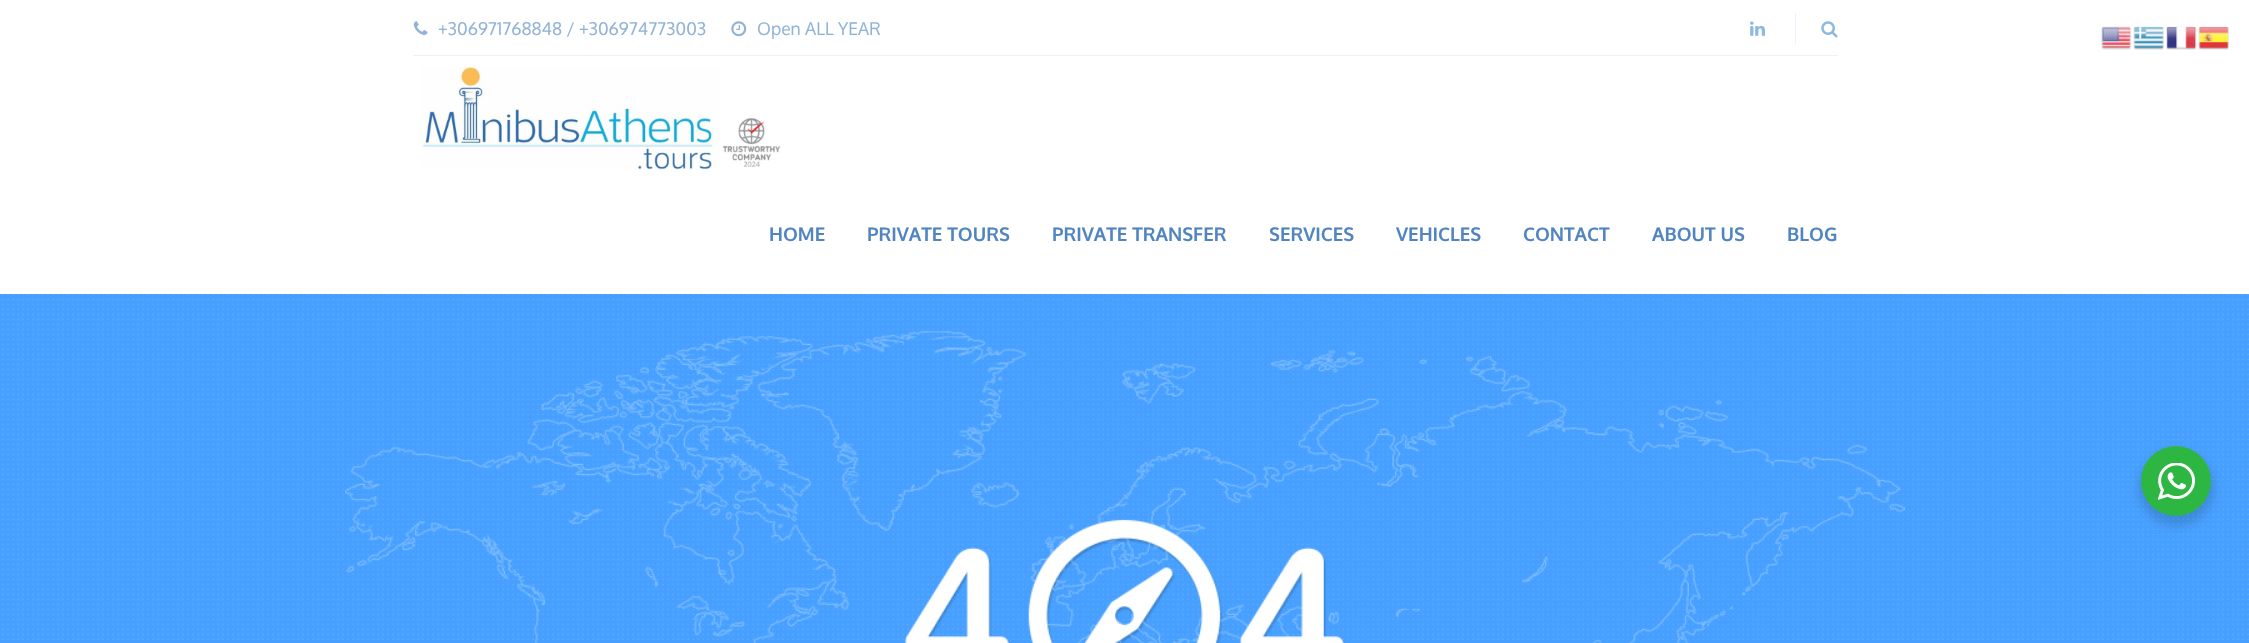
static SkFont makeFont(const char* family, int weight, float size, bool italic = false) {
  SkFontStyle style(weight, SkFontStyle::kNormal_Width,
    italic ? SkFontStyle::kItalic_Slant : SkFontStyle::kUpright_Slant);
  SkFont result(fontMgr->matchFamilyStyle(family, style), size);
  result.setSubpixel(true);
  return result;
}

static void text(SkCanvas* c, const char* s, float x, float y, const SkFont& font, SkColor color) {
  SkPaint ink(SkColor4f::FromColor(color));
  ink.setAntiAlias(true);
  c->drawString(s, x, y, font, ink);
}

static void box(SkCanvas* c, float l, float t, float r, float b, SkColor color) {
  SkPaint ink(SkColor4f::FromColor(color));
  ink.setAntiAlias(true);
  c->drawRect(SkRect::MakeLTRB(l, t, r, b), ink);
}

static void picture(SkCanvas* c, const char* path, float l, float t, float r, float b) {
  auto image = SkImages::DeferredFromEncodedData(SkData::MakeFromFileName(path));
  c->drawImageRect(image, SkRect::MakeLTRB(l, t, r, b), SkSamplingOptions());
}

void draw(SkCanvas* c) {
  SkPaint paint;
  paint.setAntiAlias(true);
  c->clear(0xffffffff);
  picture(c, "img_01.png", 413, 21, 428, 35);
  SkFont face1 = makeFont("Oxygen", 400, 17.5f);
  text(c, "+306971768848 / +306974773003", 438, 35, face1, 0xff92b3d8);
  picture(c, "img_02.png", 731, 21, 747, 37);
  text(c, "Open ALL YEAR", 757, 35, face1, 0xff92b3d8);
  picture(c, "img_03.png", 1750, 21, 1765, 36);
  box(c, 1795, 13, 1796, 44, 0xffe9f1f9);
  picture(c, "img_04.png", 1821, 21, 1838, 38);
  box(c, 413, 55, 1838, 56, 0xffe9f1f9);
  picture(c, "img_05.png", 421, 66, 781, 170);
  SkFont face2 = makeFont("Oxygen", 700, 18.75f);
  text(c, "HOME", 769, 241, face2, 0xff5185c1);
  text(c, "PRIVATE TOURS", 867, 241, face2, 0xff5185c1);
  text(c, "PRIVATE TRANSFER", 1052, 241, face2, 0xff5185c1);
  text(c, "SERVICES", 1269, 241, face2, 0xff5185c1);
  text(c, "VEHICLES", 1396, 241, face2, 0xff5185c1);
  text(c, "CONTACT", 1523, 241, face2, 0xff5185c1);
  text(c, "ABOUT US", 1652, 241, face2, 0xff5185c1);
  text(c, "BLOG", 1787, 241, face2, 0xff5185c1);
  box(c, 0, 294, 2249, 643, 0xff47a0ff);
  picture(c, "img_06.png", 2, 294, 2249, 640);
  picture(c, "img_08.png", 904, 519, 1345, 643);
  picture(c, "img_07.png", 345, 331, 1905, 643);
  picture(c, "img_09.png", 2101, 26, 2132, 50);
  picture(c, "img_10.png", 2133, 26, 2164, 50);
  picture(c, "img_11.png", 2166, 26, 2197, 50);
  picture(c, "img_12.png", 2198, 26, 2229, 50);
  paint.setColor(0x24000000);
  paint.setMaskFilter(SkMaskFilter::MakeBlur(kNormal_SkBlurStyle, 5));
  c->drawRoundRect(SkRect::MakeLTRB(2139, 451, 2214, 526), 37.5f, 37.5f, paint);
  paint.setMaskFilter(nullptr);
  paint.setColor(0xff2db742);
  c->drawCircle(2176, 481, 35, paint);
  picture(c, "img_13.png", 2158, 463, 2195, 500);
}
